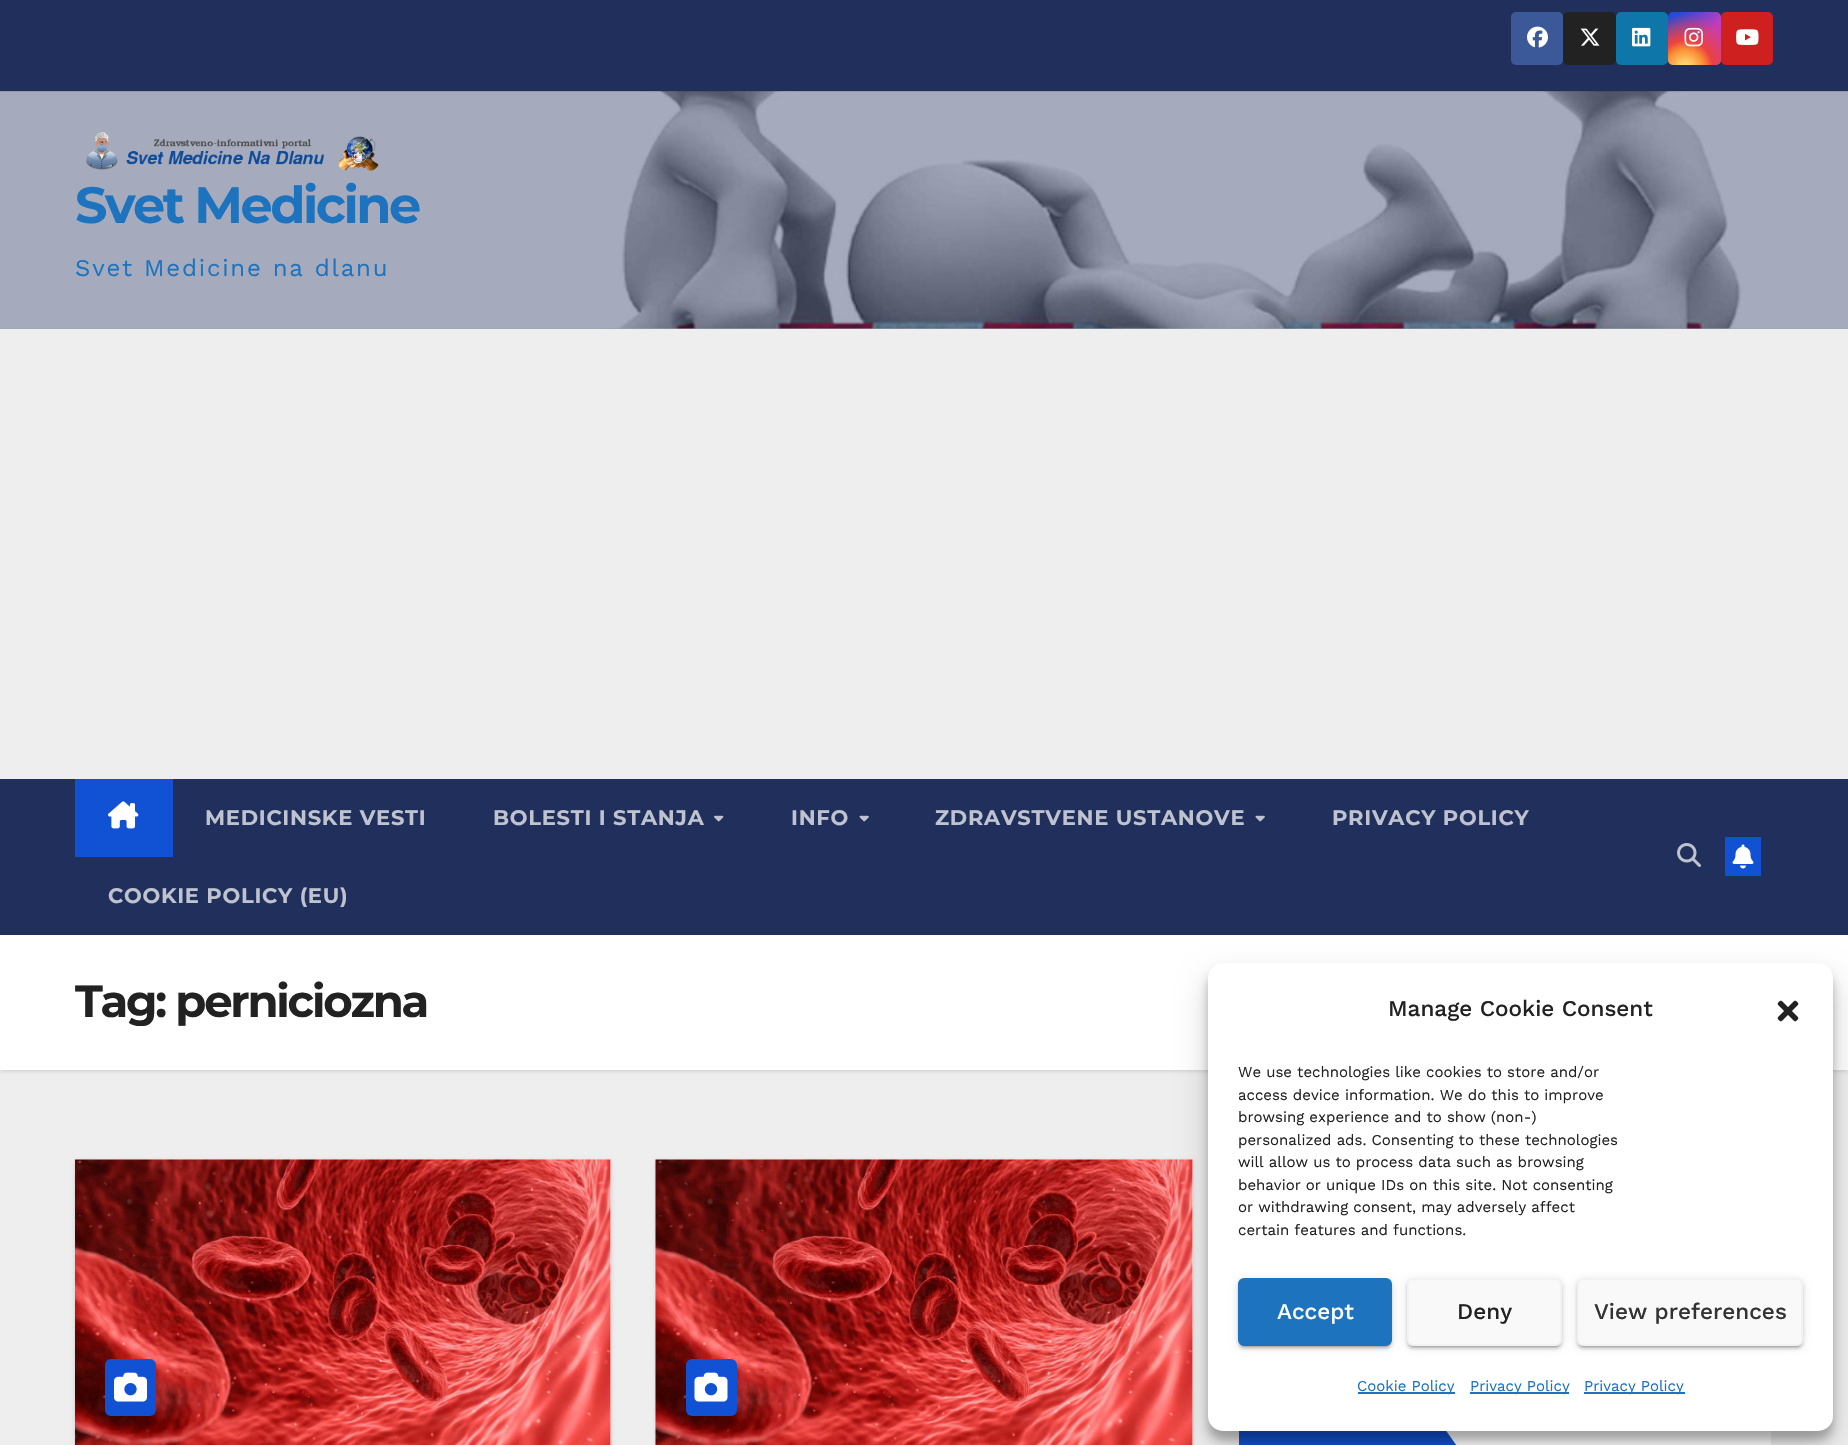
static SkFont makeFont(const char* family, int weight, float size, bool italic = false) {
  SkFontStyle style(weight, SkFontStyle::kNormal_Width,
    italic ? SkFontStyle::kItalic_Slant : SkFontStyle::kUpright_Slant);
  SkFont result(fontMgr->matchFamilyStyle(family, style), size);
  result.setSubpixel(true);
  return result;
}

static void text(SkCanvas* c, const char* s, float x, float y, const SkFont& font, SkColor color) {
  SkPaint ink(SkColor4f::FromColor(color));
  ink.setAntiAlias(true);
  c->drawString(s, x, y, font, ink);
}

static void spacedText(SkCanvas* c, const char* s, float x, float y, const SkFont& font, const SkPaint& ink, float letter, float word) {
  std::vector<SkGlyphID> glyphs(font.countText(s, strlen(s), SkTextEncoding::kUTF8));
  std::vector<float> xs(glyphs.size());
  font.textToGlyphs(s, strlen(s), SkTextEncoding::kUTF8, glyphs);
  font.getXPos(glyphs, xs, x);
  float extra = 0;
  for (size_t i = 0; i < glyphs.size(); i++) {
    xs[i] += extra;
    extra += letter + word * (glyphs[i] == font.unicharToGlyph(' '));
  }
  c->drawTextBlob(SkTextBlob::MakeFromPosHGlyphs(glyphs, xs, y, font), 0, 0, ink);
}

static void box(SkCanvas* c, float l, float t, float r, float b, SkColor color) {
  SkPaint ink(SkColor4f::FromColor(color));
  ink.setAntiAlias(true);
  c->drawRect(SkRect::MakeLTRB(l, t, r, b), ink);
}

static void roundBox(SkCanvas* c, float l, float t, float r, float b, float radius, SkColor color) {
  SkPaint ink(SkColor4f::FromColor(color));
  ink.setAntiAlias(true);
  c->drawRoundRect(SkRect::MakeLTRB(l, t, r, b), radius, radius, ink);
}

static void picture(SkCanvas* c, const char* path, float l, float t, float r, float b) {
  auto image = SkImages::DeferredFromEncodedData(SkData::MakeFromFileName(path));
  c->drawImageRect(image, SkRect::MakeLTRB(l, t, r, b), SkSamplingOptions());
}

void draw(SkCanvas* c) {
  SkPaint paint;
  paint.setAntiAlias(true);
  c->clear(0xffeeeeee);
  box(c, 0, 328, 1848, 329, 0xff9ca2b3);
  box(c, 0, 0, 1848, 92, 0xff202f5b);
  roundBox(c, 1511, 12, 1563, 65, 5, 0xff3b5998);
  picture(c, "img_01.png", 1527, 26, 1548, 48);
  roundBox(c, 1563, 12, 1616, 65, 5, 0xff222222);
  picture(c, "img_02.png", 1580, 28, 1600, 46);
  roundBox(c, 1616, 12, 1668, 65, 5, 0xff0e76a8);
  picture(c, "img_03.png", 1632, 27, 1651, 47);
  {
    const SkColor colors[] = {0xff234bd7, 0xffc33cbe};
    const float stops[] = {0.12f, 0.58f};
    const SkPoint ends[] = {{1668, 12}, {1721, 65}};
    paint.setShader(SkGradientShader::MakeLinear(ends, colors, stops, 2, SkTileMode::kClamp));
    paint.setAlpha(255);
  }
  c->drawRoundRect(SkRect::MakeLTRB(1668, 12, 1721, 65), 5, 5, paint);
  {
    const SkColor colors[] = {0xffffe17d, 0xffffcd69, 0xfffa9137, 0xffeb4141, 0x00eb4141};
    const float stops[] = {0, 0.1f, 0.28f, 0.42f, 0.82f};
    paint.setShader(SkGradientShader::MakeRadial({1685, 68}, 66, colors, stops, 5, SkTileMode::kClamp));
    paint.setAlpha(255);
  }
  c->drawRoundRect(SkRect::MakeLTRB(1668, 12, 1721, 65), 5, 5, paint);
  picture(c, "img_04.png", 1684, 27, 1703, 47);
  roundBox(c, 1721, 12, 1773, 65, 5, 0xffcd201f);
  picture(c, "img_05.png", 1736, 29, 1759, 45);
  picture(c, "img_06.png", 0, 91, 1848, 329);
  picture(c, "img_07.png", 86, 131, 379, 171);
  SkFont face1 = makeFont("Montserrat", 700, 51);
  paint.setShader(nullptr);
  paint.setColor(0xff1e73be);
  spacedText(c, "Svet Medicine", 75, 223, face1, paint, -2.5f, 0);
  SkFont face2 = makeFont("Work Sans", 400, 24);
  spacedText(c, "Svet Medicine na dlanu", 75, 276, face2, paint, 1.8f, 0);
  paint.setColor(0x26000000);
  paint.setMaskFilter(SkMaskFilter::MakeBlur(kNormal_SkBlurStyle, 2));
  c->drawRect(SkRect::MakeLTRB(0, 936, 1848, 1071), paint);
  paint.setMaskFilter(nullptr);
  box(c, 0, 779, 1848, 935, 0xff202f5b);
  box(c, 75, 779, 173, 857, 0xff1151d3);
  picture(c, "img_08.png", 108, 801, 139, 829);
  SkFont face3 = makeFont("Montserrat", 700, 21);
  paint.setColor(0xffbec3cf);
  spacedText(c, "MEDICINSKE VESTI", 205, 825, face3, paint, 0.75f, 0);
  spacedText(c, "BOLESTI I STANJA", 493, 825, face3, paint, 0.75f, 0);
  picture(c, "img_09.png", 714, 815, 724, 822);
  spacedText(c, "INFO", 791, 825, face3, paint, 0.75f, 0);
  picture(c, "img_10.png", 859, 815, 869, 822);
  spacedText(c, "ZDRAVSTVENE USTANOVE", 935, 825, face3, paint, 0.75f, 0);
  picture(c, "img_10.png", 1255, 815, 1265, 822);
  spacedText(c, "PRIVACY POLICY", 1332, 825, face3, paint, 0.75f, 0);
  spacedText(c, "COOKIE POLICY (EU)", 108, 903, face3, paint, 0.75f, 0);
  picture(c, "img_11.png", 1677, 843, 1701, 867);
  box(c, 1725, 837, 1761, 876, 0xff1151d3);
  picture(c, "img_12.png", 1732, 844, 1754, 869);
  box(c, 0, 935, 1848, 1070, 0xffffffff);
  SkFont face4 = makeFont("Montserrat", 700, 45);
  paint.setColor(0xff222222);
  spacedText(c, "Tag: perniciozna", 75, 1017, face4, paint, -2.25f, 0);
  paint.setColor(0x26000000);
  paint.setMaskFilter(SkMaskFilter::MakeBlur(kNormal_SkBlurStyle, 2));
  c->drawRect(SkRect::MakeLTRB(75, 1161, 611, 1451), paint);
  paint.setMaskFilter(nullptr);
  box(c, 610, 1160, 611, 1445, 0xffffffff);
  picture(c, "img_13.png", 75, 1159, 611, 1445);
  roundBox(c, 105, 1359, 156, 1416, 6, 0xff1151d3);
  picture(c, "img_14.png", 114, 1372, 147, 1402);
  paint.setMaskFilter(SkMaskFilter::MakeBlur(kNormal_SkBlurStyle, 2));
  c->drawRect(SkRect::MakeLTRB(656, 1161, 1193, 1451), paint);
  paint.setMaskFilter(nullptr);
  box(c, 1192, 1160, 1193, 1445, 0xffffffff);
  picture(c, "img_15.png", 655, 1159, 1193, 1445);
  roundBox(c, 686, 1359, 737, 1416, 6, 0xff1151d3);
  picture(c, "img_16.png", 694, 1372, 728, 1402);
  box(c, 1446, 1431, 1771, 1445, 0xffffffff);
  box(c, 1239, 1431, 1442, 1445, 0xff1151d3);
  paint.setColor(0xff1151d3);
  c->drawPath(SkPathBuilder().moveTo(1442, 1425).lineTo(1442, 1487).lineTo(1486, 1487).close().detach(), paint);
  paint.setColor(0x3b000000);
  paint.setMaskFilter(SkMaskFilter::MakeBlur(kNormal_SkBlurStyle, 4.5f));
  c->drawRoundRect(SkRect::MakeLTRB(1208, 972, 1833, 1440), 15, 15, paint);
  paint.setMaskFilter(nullptr);
  paint.setColor(0x30000000);
  paint.setMaskFilter(SkMaskFilter::MakeBlur(kNormal_SkBlurStyle, 15));
  c->drawRoundRect(SkRect::MakeLTRB(1208, 978, 1833, 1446), 15, 15, paint);
  paint.setMaskFilter(nullptr);
  roundBox(c, 1208, 963, 1833, 1431, 15, 0xffffffff);
  SkFont face5 = makeFont("Work Sans", 500, 22.5f);
  text(c, "Manage Cookie Consent", 1388, 1016, face5, 0xff222222);
  picture(c, "img_17.png", 1777, 1000, 1799, 1022);
  SkFont face6 = makeFont("Work Sans", 400, 15);
  text(c, "We use technologies like cookies to store and/or", 1238, 1077, face6, 0xff222222);
  text(c, "access device information. We do this to improve", 1238, 1100, face6, 0xff222222);
  text(c, "browsing experience and to show (non-)", 1238, 1122, face6, 0xff222222);
  text(c, "personalized ads. Consenting to these technologies", 1238, 1145, face6, 0xff222222);
  text(c, "will allow us to process data such as browsing", 1238, 1167, face6, 0xff222222);
  text(c, "behavior or unique IDs on this site. Not consenting", 1238, 1190, face6, 0xff222222);
  text(c, "or withdrawing consent, may adversely affect", 1238, 1212, face6, 0xff222222);
  text(c, "certain features and functions.", 1238, 1235, face6, 0xff222222);
  paint.setColor(0x1f000000);
  paint.setMaskFilter(SkMaskFilter::MakeBlur(kNormal_SkBlurStyle, 4));
  c->drawRoundRect(SkRect::MakeLTRB(1238, 1280, 1392, 1347), 6, 6, paint);
  paint.setMaskFilter(nullptr);
  paint.setColor(0x33000000);
  paint.setMaskFilter(SkMaskFilter::MakeBlur(kNormal_SkBlurStyle, 1));
  c->drawRoundRect(SkRect::MakeLTRB(1241, 1286, 1389, 1347), 3, 3, paint);
  paint.setMaskFilter(nullptr);
  paint.setColor(0x24000000);
  paint.setMaskFilter(SkMaskFilter::MakeBlur(kNormal_SkBlurStyle, 1.5f));
  c->drawRoundRect(SkRect::MakeLTRB(1238, 1281, 1392, 1349), 6, 6, paint);
  paint.setMaskFilter(nullptr);
  paint.setColor(0xff1e73be);
  c->drawRoundRect(SkRect::MakeLTRB(1239, 1279, 1391, 1345), 5, 5, paint);
  paint.setStyle(SkPaint::kStroke_Style);
  paint.setStrokeWidth(2);
  c->drawRoundRect(SkRect::MakeLTRB(1239, 1279, 1391, 1345), 5, 5, paint);
  text(c, "Accept", 1277, 1319, face5, 0xffffffff);
  paint.setStyle(SkPaint::kFill_Style);
  paint.setColor(0x1f000000);
  paint.setMaskFilter(SkMaskFilter::MakeBlur(kNormal_SkBlurStyle, 4));
  c->drawRoundRect(SkRect::MakeLTRB(1407, 1280, 1562, 1347), 6, 6, paint);
  paint.setMaskFilter(nullptr);
  paint.setColor(0x33000000);
  paint.setMaskFilter(SkMaskFilter::MakeBlur(kNormal_SkBlurStyle, 1));
  c->drawRoundRect(SkRect::MakeLTRB(1410, 1286, 1559, 1347), 3, 3, paint);
  paint.setMaskFilter(nullptr);
  paint.setColor(0x24000000);
  paint.setMaskFilter(SkMaskFilter::MakeBlur(kNormal_SkBlurStyle, 1.5f));
  c->drawRoundRect(SkRect::MakeLTRB(1407, 1281, 1562, 1349), 6, 6, paint);
  paint.setMaskFilter(nullptr);
  paint.setColor(0xfff9f9f9);
  c->drawRoundRect(SkRect::MakeLTRB(1408, 1279, 1561, 1345), 5, 5, paint);
  paint.setStyle(SkPaint::kStroke_Style);
  paint.setColor(0xfff2f2f2);
  c->drawRoundRect(SkRect::MakeLTRB(1408, 1279, 1561, 1345), 5, 5, paint);
  text(c, "Deny", 1457, 1319, face5, 0xff222222);
  paint.setStyle(SkPaint::kFill_Style);
  paint.setColor(0x1f000000);
  paint.setMaskFilter(SkMaskFilter::MakeBlur(kNormal_SkBlurStyle, 4));
  c->drawRoundRect(SkRect::MakeLTRB(1577, 1280, 1803, 1347), 6, 6, paint);
  paint.setMaskFilter(nullptr);
  paint.setColor(0x33000000);
  paint.setMaskFilter(SkMaskFilter::MakeBlur(kNormal_SkBlurStyle, 1));
  c->drawRoundRect(SkRect::MakeLTRB(1580, 1286, 1800, 1347), 3, 3, paint);
  paint.setMaskFilter(nullptr);
  paint.setColor(0x24000000);
  paint.setMaskFilter(SkMaskFilter::MakeBlur(kNormal_SkBlurStyle, 1.5f));
  c->drawRoundRect(SkRect::MakeLTRB(1577, 1281, 1803, 1349), 6, 6, paint);
  paint.setMaskFilter(nullptr);
  paint.setColor(0xfff9f9f9);
  c->drawRoundRect(SkRect::MakeLTRB(1578, 1279, 1802, 1345), 5, 5, paint);
  paint.setStyle(SkPaint::kStroke_Style);
  paint.setColor(0xfff2f2f2);
  c->drawRoundRect(SkRect::MakeLTRB(1578, 1279, 1802, 1345), 5, 5, paint);
  text(c, "View preferences", 1594, 1319, face5, 0xff333333);
  box(c, 1358, 1392, 1455, 1394, 0xff1e73be);
  text(c, "Cookie Policy", 1357, 1391, face6, 0xff1e73be);
  box(c, 1470, 1392, 1569, 1394, 0xff1e73be);
  text(c, "Privacy Policy", 1470, 1391, face6, 0xff1e73be);
  box(c, 1584, 1392, 1685, 1394, 0xff1e73be);
  text(c, "Privacy Policy", 1584, 1391, face6, 0xff1e73be);
}
